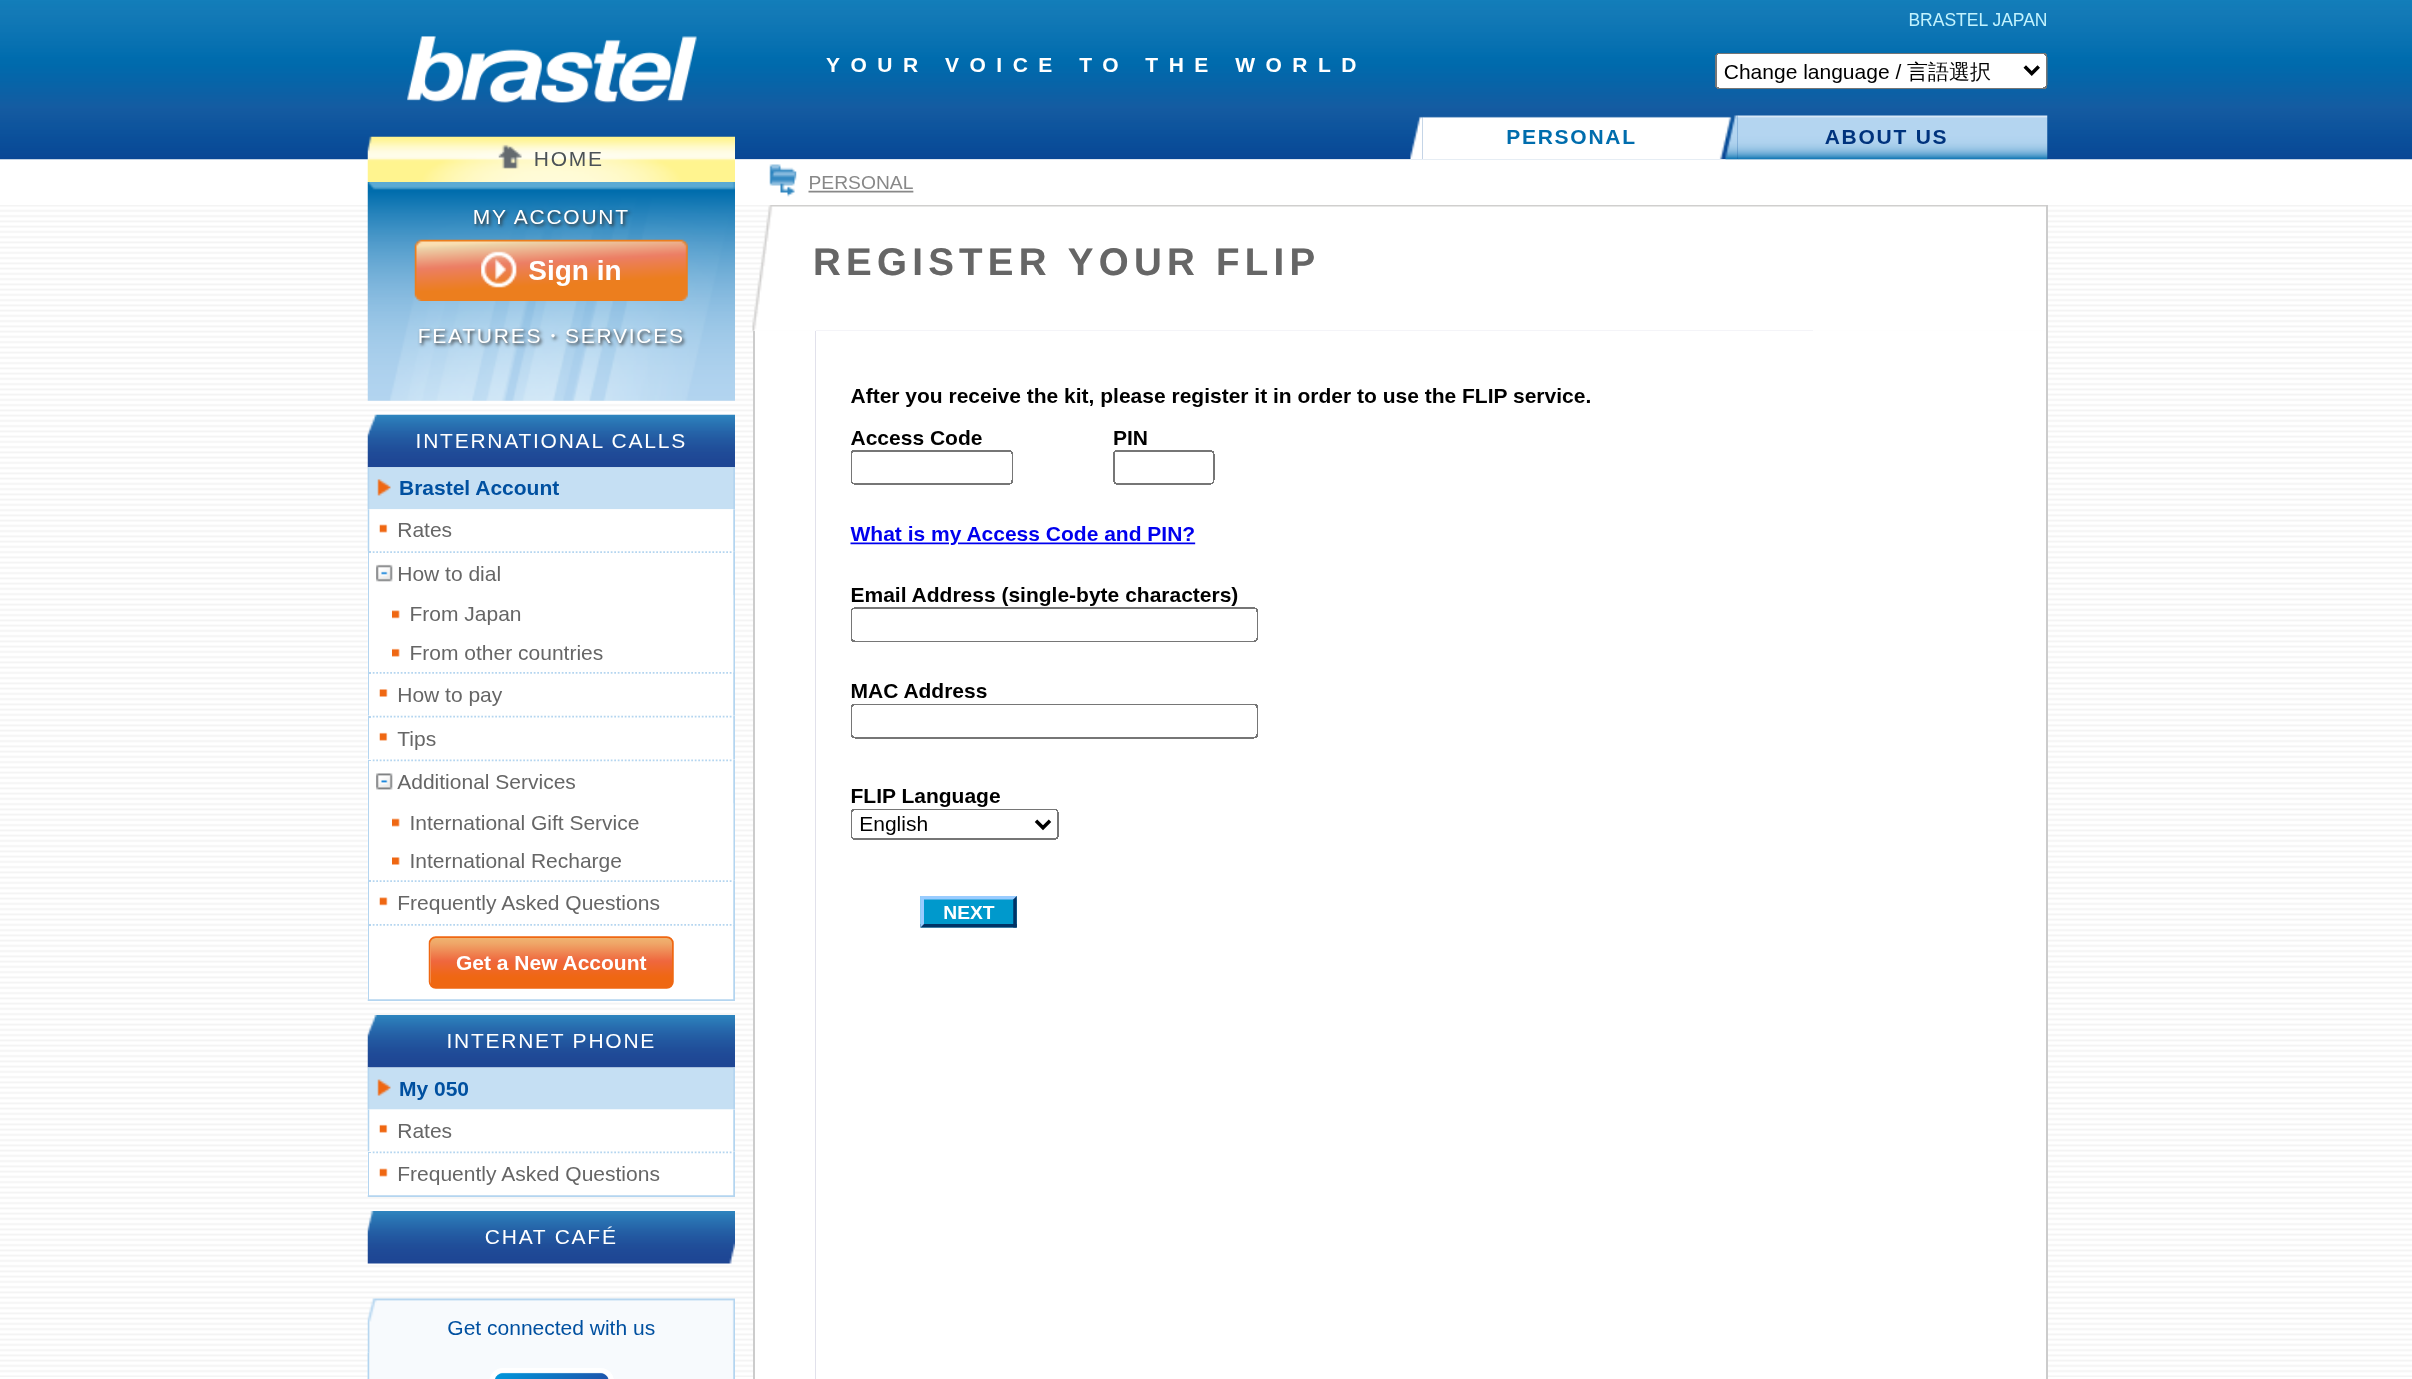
static SkFont makeFont(const char* family, int weight, float size, bool italic = false) {
  SkFontStyle style(weight, SkFontStyle::kNormal_Width,
    italic ? SkFontStyle::kItalic_Slant : SkFontStyle::kUpright_Slant);
  SkFont result(fontMgr->matchFamilyStyle(family, style), size);
  result.setSubpixel(true);
  return result;
}

static void spacedText(SkCanvas* c, const char* s, float x, float y, const SkFont& font, const SkPaint& ink, float letter, float word) {
  std::vector<SkGlyphID> glyphs(font.countText(s, strlen(s), SkTextEncoding::kUTF8));
  std::vector<float> xs(glyphs.size());
  font.textToGlyphs(s, strlen(s), SkTextEncoding::kUTF8, glyphs);
  font.getXPos(glyphs, xs, x);
  float extra = 0;
  for (size_t i = 0; i < glyphs.size(); i++) {
    xs[i] += extra;
    extra += letter + word * (glyphs[i] == font.unicharToGlyph(' '));
  }
  c->drawTextBlob(SkTextBlob::MakeFromPosHGlyphs(glyphs, xs, y, font), 0, 0, ink);
}

static void box(SkCanvas* c, float l, float t, float r, float b, SkColor color) {
  SkPaint ink(SkColor4f::FromColor(color));
  ink.setAntiAlias(true);
  c->drawRect(SkRect::MakeLTRB(l, t, r, b), ink);
}

static void picture(SkCanvas* c, const char* path, float l, float t, float r, float b) {
  auto image = SkImages::DeferredFromEncodedData(SkData::MakeFromFileName(path));
  c->drawImageRect(image, SkRect::MakeLTRB(l, t, r, b), SkSamplingOptions());
}

void draw(SkCanvas* c) {
  SkPaint paint;
  paint.setAntiAlias(true);
  c->clear(0xffffffff);
  picture(c, "img_01.png", 0, 205, 2412, 1377);
  picture(c, "img_02.png", 0, 0, 2412, 160);
  picture(c, "img_03.png", 368, 13, 2048, 197);
  picture(c, "img_04.png", 367, 136, 735, 1379);
  box(c, 755, 331, 2046, 1377, 0xffffffff);
  box(c, 2046, 205, 2048, 1379, 0xffcccccc);
  box(c, 753, 331, 755, 1379, 0xffcccccc);
  picture(c, "img_06.png", 752, 205, 2046, 331);
  picture(c, "img_05.png", 815, 330, 1813, 1379);
  SkFont face1 = makeFont("Liberation Sans", 700, 38.5f);
  paint.setColor(0xff666666);
  spacedText(c, "REGISTER YOUR FLIP", 813, 275, face1, paint, 5.25f, 0);
}
